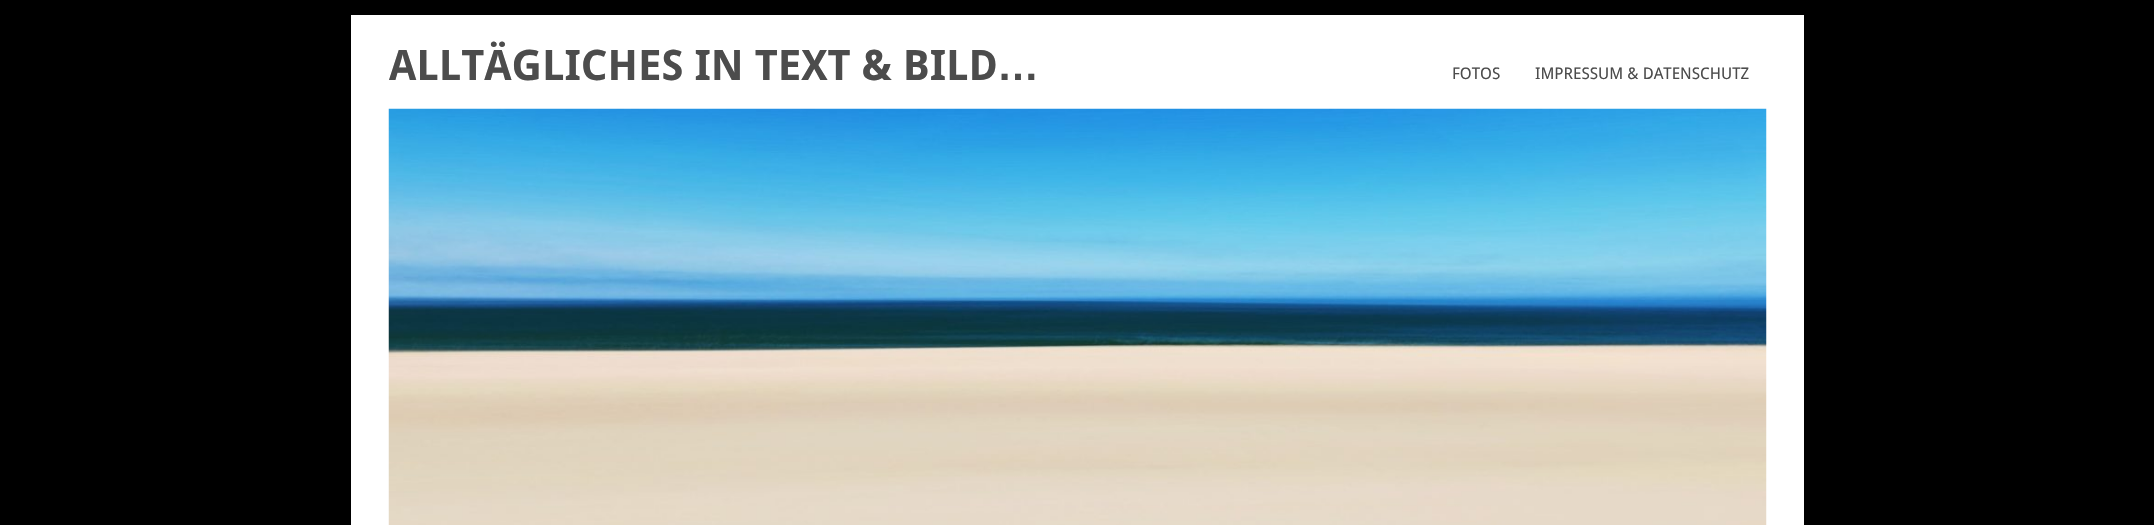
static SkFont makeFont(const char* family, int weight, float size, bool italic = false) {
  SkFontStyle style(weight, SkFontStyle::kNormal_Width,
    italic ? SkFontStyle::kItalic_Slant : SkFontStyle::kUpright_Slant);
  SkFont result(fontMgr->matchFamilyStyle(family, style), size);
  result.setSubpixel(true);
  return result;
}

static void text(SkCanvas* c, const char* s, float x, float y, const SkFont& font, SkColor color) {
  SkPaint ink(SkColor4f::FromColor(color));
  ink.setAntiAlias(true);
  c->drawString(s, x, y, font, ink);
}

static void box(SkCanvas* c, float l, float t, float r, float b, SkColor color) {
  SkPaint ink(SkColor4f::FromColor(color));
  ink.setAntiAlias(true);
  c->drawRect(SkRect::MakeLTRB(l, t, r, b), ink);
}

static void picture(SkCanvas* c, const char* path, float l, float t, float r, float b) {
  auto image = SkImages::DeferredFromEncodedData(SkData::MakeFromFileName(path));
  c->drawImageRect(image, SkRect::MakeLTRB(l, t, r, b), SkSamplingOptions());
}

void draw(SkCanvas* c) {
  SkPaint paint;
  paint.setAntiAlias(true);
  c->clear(0xff000000);
  box(c, 351, 15, 1804, 525, 0xffffffff);
  SkFont face1 = makeFont("Droid Sans", 700, 42);
  text(c, "ALLTÄGLICHES IN TEXT & BILD", 389, 80, face1, 0xff4c4c4c);
  SkFont face2 = makeFont("Liberation Sans", 700, 42);
  text(c, "…", 997, 80, face2, 0xff4c4c4c);
  SkFont face3 = makeFont("Droid Sans", 400, 16);
  text(c, "FOTOS", 1452, 79, face3, 0xff4c4c4c);
  text(c, "IMPRESSUM & DATENSCHUTZ", 1535, 79, face3, 0xff4c4c4c);
  picture(c, "img_01.png", 388, 108, 1767, 525);
}
